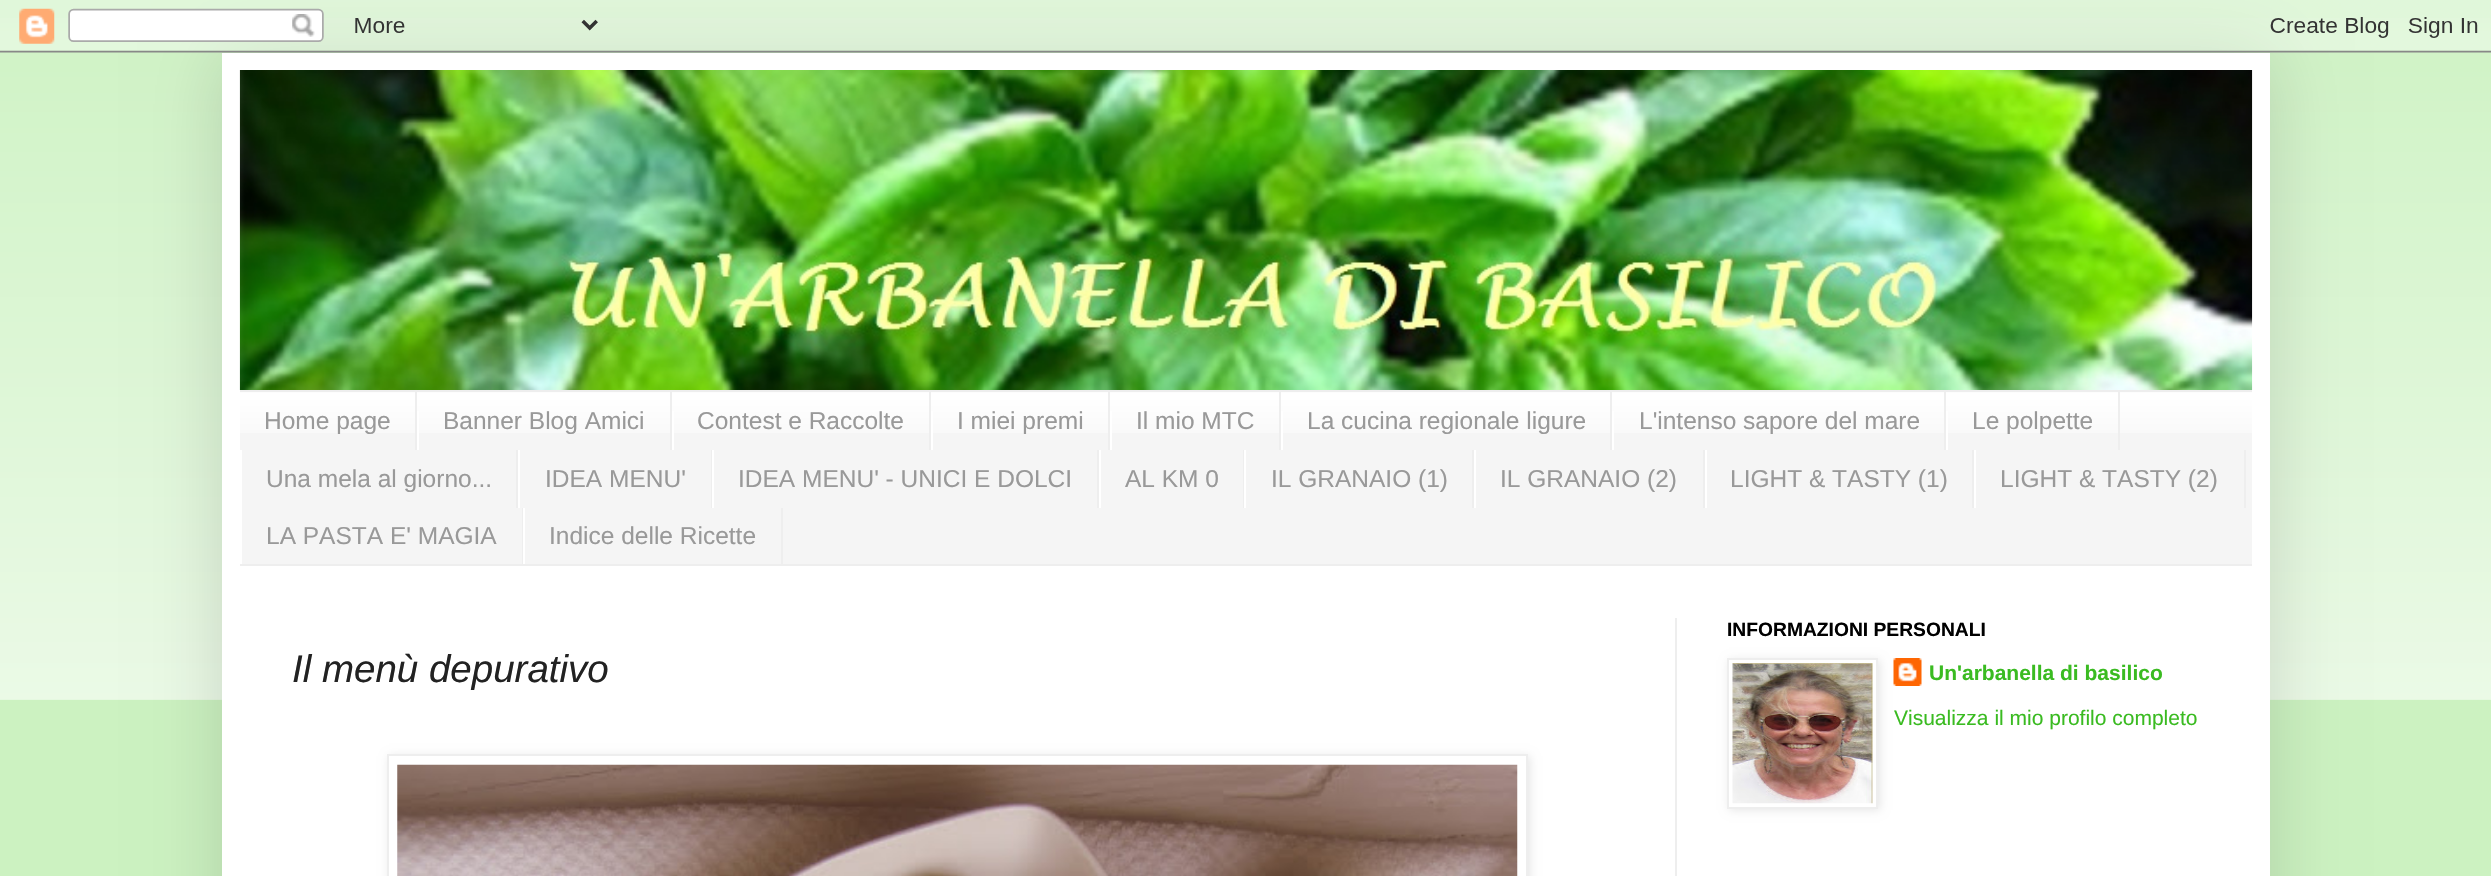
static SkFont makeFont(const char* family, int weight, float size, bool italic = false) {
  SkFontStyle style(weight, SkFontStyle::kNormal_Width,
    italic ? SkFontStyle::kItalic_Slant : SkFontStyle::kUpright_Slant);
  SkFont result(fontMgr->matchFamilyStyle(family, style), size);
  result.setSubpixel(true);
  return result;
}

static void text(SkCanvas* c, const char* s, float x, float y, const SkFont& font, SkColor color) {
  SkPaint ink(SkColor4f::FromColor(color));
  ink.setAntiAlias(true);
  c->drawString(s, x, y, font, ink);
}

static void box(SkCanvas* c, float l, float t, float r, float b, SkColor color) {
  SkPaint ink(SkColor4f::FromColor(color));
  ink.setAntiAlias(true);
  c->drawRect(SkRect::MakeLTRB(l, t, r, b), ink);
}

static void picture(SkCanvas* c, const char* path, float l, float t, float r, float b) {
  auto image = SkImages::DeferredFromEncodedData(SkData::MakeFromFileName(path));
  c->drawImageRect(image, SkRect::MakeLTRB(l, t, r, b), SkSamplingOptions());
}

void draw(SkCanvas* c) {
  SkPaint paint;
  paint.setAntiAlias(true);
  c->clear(0xffccf2c1);
  picture(c, "img_02.png", 0, 18, 2491, 700);
  paint.setColor(0x26000000);
  paint.setMaskFilter(SkMaskFilter::MakeBlur(kNormal_SkBlurStyle, 35));
  c->drawRect(SkRect::MakeLTRB(222, 53, 2270, 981), paint);
  paint.setMaskFilter(nullptr);
  picture(c, "img_01.png", 0, 0, 2491, 53);
  box(c, 222, 53, 2270, 876, 0xffffffff);
  picture(c, "img_03.png", 239, 70, 2253, 390);
  box(c, 240, 392, 2252, 564, 0xfff5f5f5);
  picture(c, "img_04.png", 240, 392, 2252, 433);
  box(c, 240, 390, 2252, 392, 0xffeeeeee);
  box(c, 240, 564, 2252, 566, 0xffeeeeee);
  box(c, 415, 392, 417, 450, 0xffeeeeee);
  SkFont face1 = makeFont("Liberation Sans", 400, 24.5f);
  text(c, "Home page", 264, 429, face1, 0xff999999);
  box(c, 670, 392, 672, 450, 0xffeeeeee);
  box(c, 417, 411, 419, 450, 0xffffffff);
  text(c, "Banner Blog Amici", 443, 429, face1, 0xff999999);
  box(c, 929, 392, 931, 450, 0xffeeeeee);
  box(c, 672, 411, 674, 450, 0xffffffff);
  text(c, "Contest e Raccolte", 697, 429, face1, 0xff999999);
  box(c, 1108, 392, 1110, 450, 0xffeeeeee);
  box(c, 931, 411, 933, 450, 0xffffffff);
  text(c, "I miei premi", 957, 429, face1, 0xff999999);
  box(c, 1279, 392, 1281, 450, 0xffeeeeee);
  box(c, 1110, 411, 1112, 450, 0xffffffff);
  text(c, "Il mio MTC", 1136, 429, face1, 0xff999999);
  box(c, 1610, 392, 1612, 450, 0xffeeeeee);
  box(c, 1281, 411, 1283, 450, 0xffffffff);
  text(c, "La cucina regionale ligure", 1307, 429, face1, 0xff999999);
  box(c, 1944, 392, 1946, 450, 0xffeeeeee);
  box(c, 1612, 411, 1614, 450, 0xffffffff);
  text(c, "L'intenso sapore del mare", 1639, 429, face1, 0xff999999);
  box(c, 2118, 392, 2120, 450, 0xffeeeeee);
  box(c, 1946, 411, 1948, 450, 0xffffffff);
  text(c, "Le polpette", 1972, 429, face1, 0xff999999);
  box(c, 516, 450, 518, 508, 0xffeeeeee);
  box(c, 240, 450, 242, 564, 0xffffffff);
  text(c, "Una mela al giorno...", 266, 487, face1, 0xff999999);
  box(c, 711, 450, 712, 508, 0xffeeeeee);
  box(c, 518, 450, 520, 508, 0xffffffff);
  text(c, "IDEA MENU'", 545, 487, face1, 0xff999999);
  box(c, 1097, 450, 1099, 508, 0xffeeeeee);
  box(c, 712, 450, 714, 508, 0xffffffff);
  text(c, "IDEA MENU' - UNICI E DOLCI", 738, 487, face1, 0xff999999);
  box(c, 1243, 450, 1244, 508, 0xffeeeeee);
  box(c, 1099, 450, 1101, 508, 0xffffffff);
  text(c, "AL KM 0", 1125, 487, face1, 0xff999999);
  box(c, 1472, 450, 1474, 508, 0xffeeeeee);
  box(c, 1244, 450, 1246, 508, 0xffffffff);
  text(c, "IL GRANAIO (1)", 1271, 487, face1, 0xff999999);
  box(c, 1703, 450, 1705, 508, 0xffeeeeee);
  box(c, 1474, 450, 1476, 508, 0xffffffff);
  text(c, "IL GRANAIO (2)", 1500, 487, face1, 0xff999999);
  box(c, 1972, 450, 1974, 508, 0xffeeeeee);
  box(c, 1705, 450, 1707, 508, 0xffffffff);
  text(c, "LIGHT & TASTY (1)", 1730, 487, face1, 0xff999999);
  box(c, 2244, 450, 2246, 508, 0xffeeeeee);
  box(c, 1974, 450, 1976, 508, 0xffffffff);
  text(c, "LIGHT & TASTY (2)", 2000, 487, face1, 0xff999999);
  box(c, 522, 508, 523, 564, 0xffeeeeee);
  text(c, "LA PASTA E' MAGIA", 266, 544, face1, 0xff999999);
  box(c, 781, 508, 783, 564, 0xffeeeeee);
  box(c, 523, 508, 525, 564, 0xffffffff);
  text(c, "Indice delle Ricette", 549, 544, face1, 0xff999999);
  box(c, 1675, 618, 1677, 876, 0xffeeeeee);
  SkFont face2 = makeFont("Liberation Sans", 400, 38.5f, true);
  text(c, "Il menù depurativo", 292, 682, face2, 0xff222222);
  paint.setColor(0x1a000000);
  paint.setMaskFilter(SkMaskFilter::MakeBlur(kNormal_SkBlurStyle, 4.5f));
  c->drawRect(SkRect::MakeLTRB(389, 756, 1530, 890), paint);
  paint.setMaskFilter(nullptr);
  paint.setColor(0xffffffff);
  c->drawRect(SkRect::MakeLTRB(388, 755, 1527, 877), paint);
  paint.setStyle(SkPaint::kStroke_Style);
  paint.setStrokeWidth(2);
  paint.setColor(0xffeeeeee);
  c->drawRect(SkRect::MakeLTRB(388, 755, 1527, 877), paint);
  picture(c, "img_05.png", 397, 764, 1518, 876);
  SkFont face3 = makeFont("Liberation Sans", 700, 19.25f);
  text(c, "INFORMAZIONI PERSONALI", 1727, 636, face3, 0xff000000);
  picture(c, "img_07.png", 1893, 658, 1922, 686);
  paint.setStyle(SkPaint::kFill_Style);
  paint.setColor(0x1a000000);
  paint.setMaskFilter(SkMaskFilter::MakeBlur(kNormal_SkBlurStyle, 4.5f));
  c->drawRect(SkRect::MakeLTRB(1729, 660, 1880, 810), paint);
  paint.setMaskFilter(nullptr);
  paint.setColor(0xffffffff);
  c->drawRect(SkRect::MakeLTRB(1728, 659, 1877, 808), paint);
  paint.setStyle(SkPaint::kStroke_Style);
  paint.setColor(0xffeeeeee);
  c->drawRect(SkRect::MakeLTRB(1728, 659, 1877, 808), paint);
  picture(c, "img_06.png", 1732, 663, 1873, 804);
  SkFont face4 = makeFont("Liberation Sans", 700, 21);
  text(c, "Un'arbanella di basilico", 1929, 680, face4, 0xff3abb21);
  SkFont face5 = makeFont("Liberation Sans", 400, 21);
  text(c, "Visualizza il mio profilo completo", 1894, 725, face5, 0xff3abb21);
}
